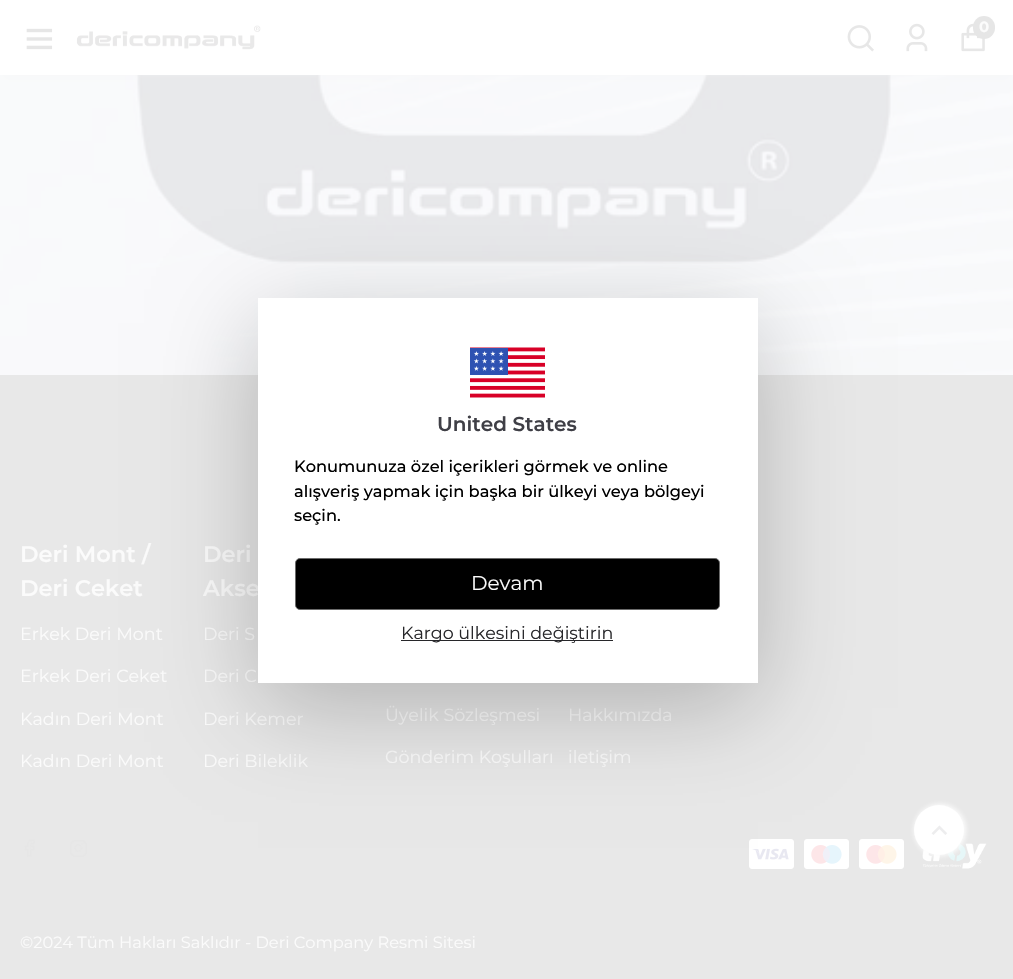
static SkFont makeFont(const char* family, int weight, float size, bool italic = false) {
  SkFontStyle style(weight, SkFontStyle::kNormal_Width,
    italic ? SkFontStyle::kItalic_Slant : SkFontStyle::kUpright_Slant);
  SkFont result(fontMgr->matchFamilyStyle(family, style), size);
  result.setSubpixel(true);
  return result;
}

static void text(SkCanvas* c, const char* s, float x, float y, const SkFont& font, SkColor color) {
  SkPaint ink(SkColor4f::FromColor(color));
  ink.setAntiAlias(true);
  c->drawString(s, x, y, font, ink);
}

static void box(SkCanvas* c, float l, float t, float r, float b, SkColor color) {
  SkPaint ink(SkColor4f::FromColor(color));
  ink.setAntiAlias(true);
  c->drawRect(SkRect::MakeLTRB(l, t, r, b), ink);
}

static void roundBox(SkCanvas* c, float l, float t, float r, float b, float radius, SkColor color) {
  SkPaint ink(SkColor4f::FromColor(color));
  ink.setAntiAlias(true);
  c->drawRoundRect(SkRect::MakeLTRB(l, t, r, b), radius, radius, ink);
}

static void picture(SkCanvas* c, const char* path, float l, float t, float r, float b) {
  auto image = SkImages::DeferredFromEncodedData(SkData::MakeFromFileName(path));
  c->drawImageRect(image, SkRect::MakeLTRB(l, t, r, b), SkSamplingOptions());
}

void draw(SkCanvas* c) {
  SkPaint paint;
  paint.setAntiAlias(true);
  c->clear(0xffe8e8e8);
  picture(c, "img_07.png", 0, 75, 1013, 375);
  paint.setColor(0xfff5f5f5);
  paint.setMaskFilter(SkMaskFilter::MakeBlur(kNormal_SkBlurStyle, 3));
  c->drawRect(SkRect::MakeLTRB(9, 15, 1005, 73), paint);
  paint.setMaskFilter(nullptr);
  box(c, 0, 0, 1013, 75, 0xffffffff);
  picture(c, "img_01.png", 26, 28, 53, 50);
  picture(c, "img_02.png", 76, 25, 261, 50);
  picture(c, "img_03.png", 847, 25, 874, 52);
  picture(c, "img_04.png", 906, 23, 928, 52);
  picture(c, "img_05.png", 961, 23, 985, 52);
  roundBox(c, 973, 16, 995, 39, 11, 0xffe6e6e6);
  SkFont face1 = makeFont("Montserrat", 700, 15);
  text(c, "0", 979, 32, face1, 0xfffbfbfb);
  picture(c, "img_13.png", 921, 843, 987, 869);
  paint.setColor(0xfffdfdfd);
  paint.setMaskFilter(SkMaskFilter::MakeBlur(kNormal_SkBlurStyle, 2.5f));
  c->drawRoundRect(SkRect::MakeLTRB(914, 804, 966, 856), 26, 26, paint);
  paint.setMaskFilter(nullptr);
  paint.setColor(0xffffffff);
  c->drawCircle(939, 830, 25, paint);
  picture(c, "img_06.png", 931, 825, 948, 835);
  SkFont face2 = makeFont("Montserrat", 600, 22.5f);
  text(c, "Deri Mont /", 20, 562, face2, 0xfffbfbfb);
  text(c, "Deri Ceket", 20, 596, face2, 0xfffbfbfb);
  SkFont face3 = makeFont("Montserrat", 400, 17.5f);
  text(c, "Erkek Deri Mont", 20, 640, face3, 0xfffbfbfb);
  text(c, "Erkek Deri Ceket", 20, 682, face3, 0xfffbfbfb);
  text(c, "Kadın Deri Mont", 20, 725, face3, 0xfffbfbfb);
  text(c, "Kadın Deri Mont", 20, 767, face3, 0xfffbfbfb);
  text(c, "Deri", 203, 562, face2, 0xfffbfbfb);
  text(c, "Akse", 203, 596, face2, 0xfffbfbfb);
  text(c, "Deri S", 203, 640, face3, 0xfffbfbfb);
  text(c, "Deri C", 203, 682, face3, 0xfffbfbfb);
  text(c, "Deri Kemer", 203, 725, face3, 0xfffbfbfb);
  text(c, "Deri Bileklik", 203, 767, face3, 0xfffbfbfb);
  text(c, "Üyelik Sözleşmesi", 385, 721, face3, 0xfffbfbfb);
  text(c, "Gönderim Koşulları", 385, 763, face3, 0xfffbfbfb);
  text(c, "Hakkımızda", 568, 721, face3, 0xfffbfbfb);
  text(c, "iletişim", 568, 763, face3, 0xfffbfbfb);
  picture(c, "img_08.png", 24, 839, 35, 857);
  picture(c, "img_09.png", 70, 840, 87, 857);
  picture(c, "img_10.png", 749, 839, 794, 869);
  picture(c, "img_11.png", 804, 839, 849, 869);
  picture(c, "img_12.png", 859, 839, 904, 869);
  SkFont face4 = makeFont("Montserrat", 400, 16.25f);
  text(c, "©2024 Tüm Hakları Saklıdır - Deri Company Resmi Sitesi", 20, 948, face4, 0xfffbfbfb);
  paint.setColor(0x3b000000);
  paint.setMaskFilter(SkMaskFilter::MakeBlur(kNormal_SkBlurStyle, 47));
  c->drawRect(SkRect::MakeLTRB(258, 323, 758, 708), paint);
  paint.setMaskFilter(nullptr);
  box(c, 258, 298, 758, 683, 0xffffffff);
  picture(c, "img_14.png", 470, 347, 545, 398);
  SkFont face5 = makeFont("Montserrat", 600, 20);
  text(c, "United States", 437, 431, face5, 0xff3f3f46);
  SkFont face6 = makeFont("Montserrat", 500, 16.25f);
  text(c, "Konumunuza özel içerikleri görmek ve online", 294, 472, face6, 0xff000000);
  text(c, "alışveriş yapmak için başka bir ülkeyi veya bölgeyi", 294, 497, face6, 0xff000000);
  text(c, "seçin.", 294, 521, face6, 0xff000000);
  paint.setColor(0xff000000);
  c->drawRoundRect(SkRect::MakeLTRB(295.5f, 558.5f, 719.5f, 609.5f), 4.5f, 4.5f, paint);
  paint.setStyle(SkPaint::kStroke_Style);
  paint.setStrokeWidth(1);
  paint.setColor(0xff6b6b6b);
  c->drawRoundRect(SkRect::MakeLTRB(295.5f, 558.5f, 719.5f, 609.5f), 4.5f, 4.5f, paint);
  SkFont face7 = makeFont("Montserrat", 400, 20);
  text(c, "Devam", 471, 590, face7, 0xfffbfbfb);
  box(c, 401, 640, 613, 641, 0xff27272a);
  text(c, "Kargo ülkesini değiştirin", 401, 639, face3, 0xff27272a);
}
